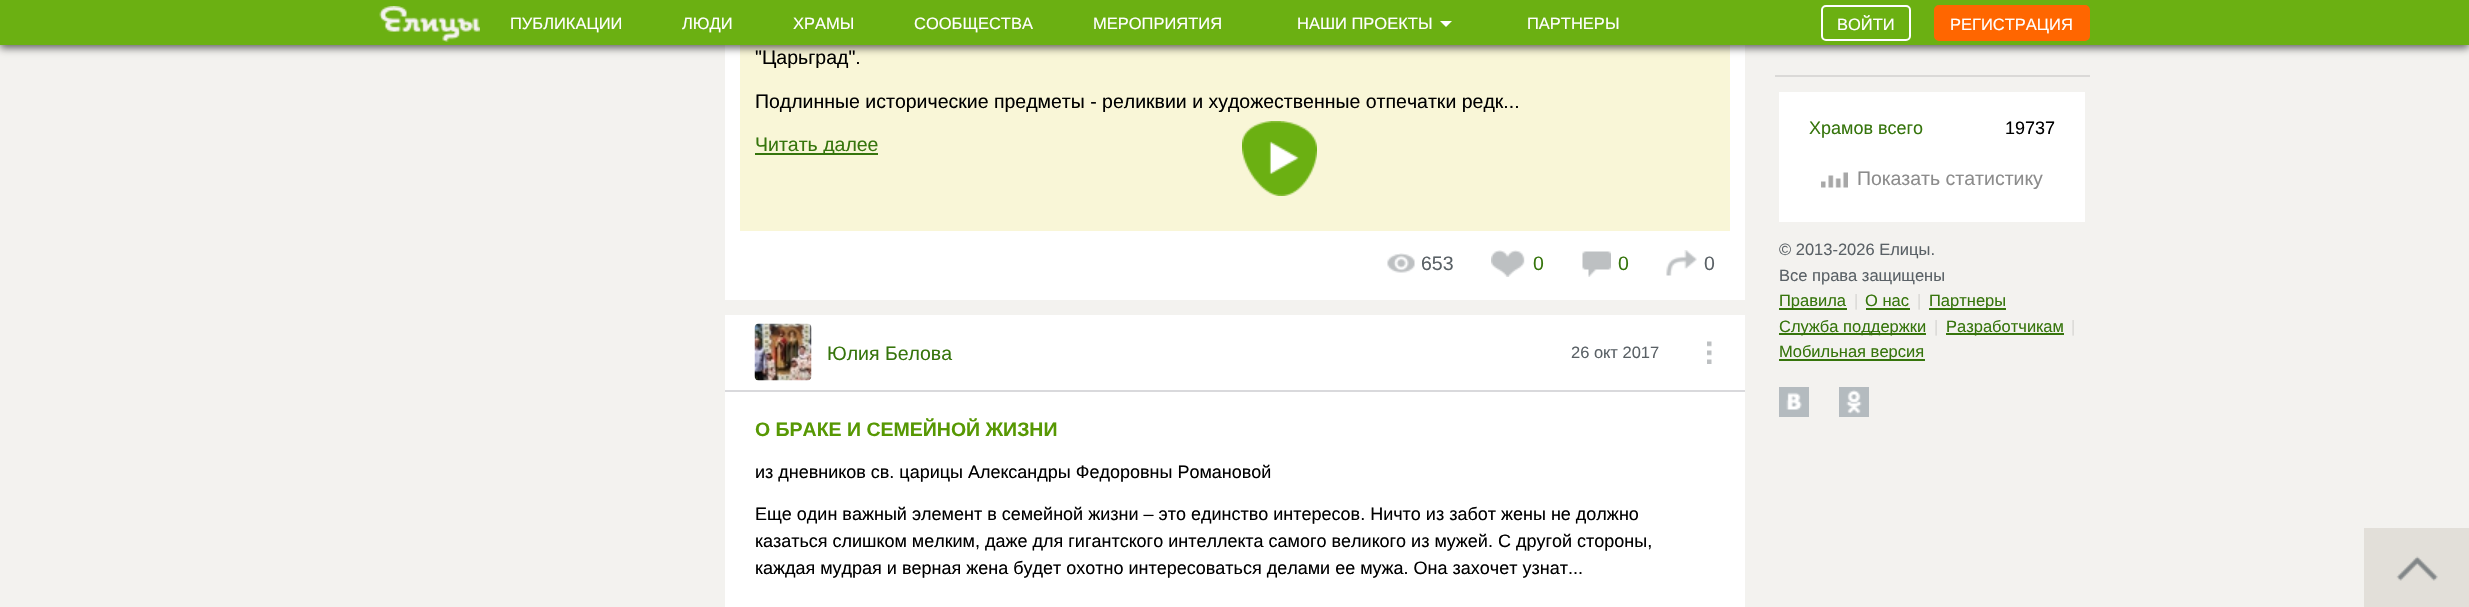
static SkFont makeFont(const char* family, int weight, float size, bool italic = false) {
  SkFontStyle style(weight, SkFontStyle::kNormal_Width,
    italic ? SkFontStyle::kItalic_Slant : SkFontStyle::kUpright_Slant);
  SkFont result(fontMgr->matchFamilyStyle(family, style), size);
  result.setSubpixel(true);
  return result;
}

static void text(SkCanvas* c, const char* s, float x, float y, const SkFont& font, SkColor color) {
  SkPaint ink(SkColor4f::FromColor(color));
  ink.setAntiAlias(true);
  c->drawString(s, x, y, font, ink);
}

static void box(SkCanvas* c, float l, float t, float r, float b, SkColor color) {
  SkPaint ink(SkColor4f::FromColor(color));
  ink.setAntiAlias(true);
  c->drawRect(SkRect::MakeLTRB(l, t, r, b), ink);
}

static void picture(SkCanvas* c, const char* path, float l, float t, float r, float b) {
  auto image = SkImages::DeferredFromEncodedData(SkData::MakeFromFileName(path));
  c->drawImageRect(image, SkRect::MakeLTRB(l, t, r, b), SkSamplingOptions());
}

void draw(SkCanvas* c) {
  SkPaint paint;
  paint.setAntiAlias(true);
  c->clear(0xfff3f2ef);
  box(c, 725, 45, 1745, 300, 0xffffffff);
  box(c, 740, 45, 1730, 231, 0xfff9f6d7);
  paint.setColor(0x99000000);
  paint.setMaskFilter(SkMaskFilter::MakeBlur(kNormal_SkBlurStyle, 4));
  c->drawRect(SkRect::MakeLTRB(0, 3, 2469, 48), paint);
  paint.setMaskFilter(nullptr);
  box(c, 0, 0, 2469, 45, 0xff6bb012);
  picture(c, "img_01.png", 379, 6, 480, 42);
  SkFont face1 = makeFont("Liberation Sans", 400, 16.5f);
  text(c, "ПУБЛИКАЦИИ", 510, 29, face1, 0xffffffff);
  text(c, "ЛЮДИ", 682, 29, face1, 0xffffffff);
  text(c, "ХРАМЫ", 793, 29, face1, 0xffffffff);
  text(c, "СООБЩЕСТВА", 914, 29, face1, 0xffffffff);
  text(c, "МЕРОПРИЯТИЯ", 1093, 29, face1, 0xffffffff);
  text(c, "НАШИ ПРОЕКТЫ", 1297, 29, face1, 0xffffffff);
  paint.setColor(0xffffffff);
  c->drawPath(SkPathBuilder().moveTo(1440, 21).lineTo(1452, 21).lineTo(1446, 27).close().detach(), paint);
  text(c, "ПАРТНЕРЫ", 1527, 29, face1, 0xffffffff);
  paint.setStyle(SkPaint::kStroke_Style);
  paint.setStrokeWidth(2);
  c->drawRoundRect(SkRect::MakeLTRB(1822, 6, 1910, 40), 4, 4, paint);
  text(c, "ВОЙТИ", 1837, 30, face1, 0xffffffff);
  paint.setStyle(SkPaint::kFill_Style);
  paint.setColor(0xffff6600);
  c->drawRoundRect(SkRect::MakeLTRB(1935, 6, 2089, 40), 4, 4, paint);
  paint.setStyle(SkPaint::kStroke_Style);
  c->drawRoundRect(SkRect::MakeLTRB(1935, 6, 2089, 40), 4, 4, paint);
  text(c, "РЕГИСТРАЦИЯ", 1950, 30, face1, 0xffffffff);
  SkFont face2 = makeFont("Liberation Sans", 400, 19.5f);
  text(c, "\"Царьград\".", 755, 64, face2, 0xff000000);
  text(c, "Подлинные исторические предметы - реликвии и художественные отпечатки редк...", 755, 108, face2, 0xff000000);
  box(c, 755, 153, 878, 155, 0xff36750c);
  text(c, "Читать далее", 755, 151, face2, 0xff36750c);
  picture(c, "img_02.png", 1242, 121, 1317, 196);
  picture(c, "img_03.png", 1387, 253, 1415, 273);
  text(c, "653", 1421, 270, face2, 0xff5a6166);
  picture(c, "img_04.png", 1491, 250, 1525, 277);
  text(c, "0", 1533, 270, face2, 0xff36750c);
  picture(c, "img_05.png", 1582, 251, 1611, 277);
  text(c, "0", 1618, 270, face2, 0xff36750c);
  picture(c, "img_06.png", 1666, 250, 1697, 276);
  text(c, "0", 1704, 270, face2, 0xff5a6166);
  box(c, 725, 315, 1745, 607, 0xffffffff);
  box(c, 725, 390, 1745, 392, 0xffd9d9dc);
  picture(c, "img_07.png", 754, 323, 812, 381);
  text(c, "Юлия Белова", 827, 360, face2, 0xff36750c);
  text(c, "26 окт 2017", 1571, 358, face1, 0xff5a6166);
  picture(c, "img_08.png", 1707, 341, 1712, 364);
  SkFont face3 = makeFont("Liberation Sans", 700, 19.5f);
  text(c, "О БРАКЕ И СЕМЕЙНОЙ ЖИЗНИ", 755, 436, face3, 0xff579803);
  SkFont face4 = makeFont("Liberation Sans", 400, 18);
  text(c, "из дневников св. царицы Александры Федоровны Романовой", 755, 478, face4, 0xff000000);
  text(c, "Еще один важный элемент в семейной жизни – это единство интересов. Ничто из забот жены не должно", 755, 520, face4, 0xff000000);
  text(c, "казаться слишком мелким, даже для гигантского интеллекта самого великого из мужей. С другой стороны,", 755, 547, face4, 0xff000000);
  text(c, "каждая мудрая и верная жена будет охотно интересоваться делами ее мужа. Она захочет узнат...", 755, 574, face4, 0xff000000);
  box(c, 1775, 75, 2090, 77, 0xffdad9d7);
  box(c, 1779, 92, 2085, 222, 0xffffffff);
  text(c, "Храмов всего", 1809, 134, face4, 0xff36750c);
  text(c, "19737", 2005, 134, face4, 0xff000000);
  picture(c, "img_09.png", 1821, 172, 1848, 188);
  text(c, "Показать статистику", 1857, 185, face2, 0xff8c8c8c);
  text(c, "© 2013-2026 Елицы.", 1779, 255, face1, 0xff5a6166);
  text(c, "Все права защищены", 1779, 281, face1, 0xff5a6166);
  box(c, 1779, 308, 1847, 310, 0xff36750c);
  text(c, "Правила", 1779, 306, face1, 0xff36750c);
  text(c, "|", 1854, 306, face1, 0xffdad9d6);
  text(c, "О нас", 1865, 306, face1, 0xff36750c);
  box(c, 1866, 308, 1910, 310, 0xff36750c);
  text(c, "|", 1917, 306, face1, 0xffdad9d6);
  box(c, 1929, 308, 2006, 310, 0xff36750c);
  text(c, "Партнеры", 1929, 306, face1, 0xff36750c);
  box(c, 1779, 333, 1926, 335, 0xff36750c);
  text(c, "Служба поддержки", 1779, 332, face1, 0xff36750c);
  text(c, "|", 1934, 332, face1, 0xffdad9d6);
  box(c, 1946, 333, 2064, 335, 0xff36750c);
  text(c, "Разработчикам", 1946, 332, face1, 0xff36750c);
  text(c, "|", 2071, 332, face1, 0xffdad9d6);
  box(c, 1779, 359, 1925, 361, 0xff36750c);
  text(c, "Мобильная версия", 1779, 357, face1, 0xff36750c);
  picture(c, "img_10.png", 1779, 387, 1809, 417);
  picture(c, "img_11.png", 1839, 387, 1869, 417);
  picture(c, "img_12.png", 2364, 528, 2469, 607);
}
